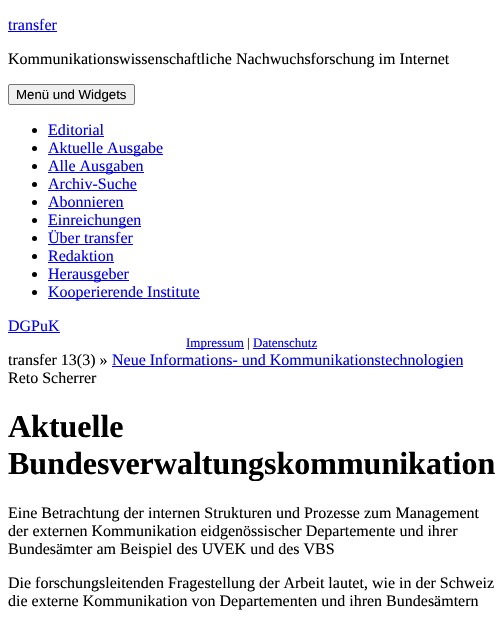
static SkFont makeFont(const char* family, int weight, float size, bool italic = false) {
  SkFontStyle style(weight, SkFontStyle::kNormal_Width,
    italic ? SkFontStyle::kItalic_Slant : SkFontStyle::kUpright_Slant);
  SkFont result(fontMgr->matchFamilyStyle(family, style), size);
  result.setSubpixel(true);
  return result;
}

static void text(SkCanvas* c, const char* s, float x, float y, const SkFont& font, SkColor color) {
  SkPaint ink(SkColor4f::FromColor(color));
  ink.setAntiAlias(true);
  c->drawString(s, x, y, font, ink);
}

static void box(SkCanvas* c, float l, float t, float r, float b, SkColor color) {
  SkPaint ink(SkColor4f::FromColor(color));
  ink.setAntiAlias(true);
  c->drawRect(SkRect::MakeLTRB(l, t, r, b), ink);
}

void draw(SkCanvas* c) {
  SkPaint paint;
  paint.setAntiAlias(true);
  c->clear(0xffffffff);
  SkFont face1 = makeFont("Liberation Serif", 400, 16);
  text(c, "transfer", 8, 30, face1, 0xff0000ee);
  box(c, 8, 31, 57, 32, 0xff0000ee);
  text(c, "Kommunikationswissenschaftliche Nachwuchsforschung im Internet", 8, 64, face1, 0xff000000);
  paint.setColor(0xffefefef);
  c->drawRoundRect(SkRect::MakeLTRB(8.5f, 84.5f, 134.5f, 104.5f), 1.5f, 1.5f, paint);
  paint.setStyle(SkPaint::kStroke_Style);
  paint.setStrokeWidth(1);
  paint.setColor(0xff767676);
  c->drawRoundRect(SkRect::MakeLTRB(8.5f, 84.5f, 134.5f, 104.5f), 1.5f, 1.5f, paint);
  SkFont face2 = makeFont("Liberation Sans", 400, 13.25f);
  text(c, "Menü und Widgets", 16, 99, face2, 0xff000000);
  paint.setStyle(SkPaint::kFill_Style);
  paint.setColor(0xff000000);
  c->drawCircle(34.5f, 130.5f, 2.5f, paint);
  text(c, "Editorial", 48, 135, face1, 0xff0000ee);
  box(c, 48, 136, 104, 137, 0xff0000ee);
  c->drawCircle(34.5f, 148.5f, 2.5f, paint);
  box(c, 48, 154, 163, 155, 0xff0000ee);
  text(c, "Aktuelle Ausgabe", 48, 153, face1, 0xff0000ee);
  c->drawCircle(34.5f, 166.5f, 2.5f, paint);
  box(c, 48, 172, 144, 173, 0xff0000ee);
  text(c, "Alle Ausgaben", 48, 171, face1, 0xff0000ee);
  c->drawCircle(34.5f, 184.5f, 2.5f, paint);
  text(c, "Archiv-Suche", 48, 189, face1, 0xff0000ee);
  box(c, 48, 190, 137, 191, 0xff0000ee);
  c->drawCircle(34.5f, 202.5f, 2.5f, paint);
  text(c, "Abonnieren", 48, 207, face1, 0xff0000ee);
  box(c, 48, 208, 124, 209, 0xff0000ee);
  c->drawCircle(34.5f, 220.5f, 2.5f, paint);
  box(c, 48, 226, 141, 227, 0xff0000ee);
  text(c, "Einreichungen", 48, 225, face1, 0xff0000ee);
  c->drawCircle(34.5f, 238.5f, 2.5f, paint);
  text(c, "Über transfer", 48, 243, face1, 0xff0000ee);
  box(c, 48, 244, 133, 245, 0xff0000ee);
  c->drawCircle(34.5f, 256.5f, 2.5f, paint);
  text(c, "Redaktion", 48, 261, face1, 0xff0000ee);
  box(c, 48, 262, 114, 263, 0xff0000ee);
  c->drawCircle(34.5f, 274.5f, 2.5f, paint);
  box(c, 48, 280, 129, 281, 0xff0000ee);
  text(c, "Herausgeber", 48, 279, face1, 0xff0000ee);
  c->drawCircle(34.5f, 292.5f, 2.5f, paint);
  box(c, 48, 298, 200, 299, 0xff0000ee);
  text(c, "Kooperierende Institute", 48, 297, face1, 0xff0000ee);
  text(c, "DGPuK", 8, 331, face1, 0xff0000ee);
  box(c, 8, 332, 60, 333, 0xff0000ee);
  box(c, 186, 348, 244, 349, 0xff0000ee);
  SkFont face3 = makeFont("Liberation Serif", 400, 13);
  text(c, "Impressum", 186, 347, face3, 0xff0000ee);
  text(c, "|", 247, 347, face3, 0xff000000);
  text(c, "Datenschutz", 253, 347, face3, 0xff0000ee);
  box(c, 253, 348, 317, 349, 0xff0000ee);
  text(c, "transfer 13(3) »", 8, 365, face1, 0xff000000);
  box(c, 112, 366, 463, 367, 0xff0000ee);
  text(c, "Neue Informations- und Kommunikationstechnologien", 112, 365, face1, 0xff0000ee);
  text(c, "Reto Scherrer", 8, 383, face1, 0xff000000);
  SkFont face4 = makeFont("Liberation Serif", 700, 32);
  text(c, "Aktuelle", 8, 437, face4, 0xff000000);
  text(c, "Bundesverwaltungskommunikation", 8, 474, face4, 0xff000000);
  text(c, "Eine Betrachtung der internen Strukturen und Prozesse zum Management", 8, 518, face1, 0xff000000);
  text(c, "der externen Kommunikation eidgenössischer Departemente und ihrer", 8, 536, face1, 0xff000000);
  text(c, "Bundesämter am Beispiel des UVEK und des VBS", 8, 554, face1, 0xff000000);
  text(c, "Die forschungsleitenden Fragestellung der Arbeit lautet, wie in der Schweiz", 8, 588, face1, 0xff000000);
  text(c, "die externe Kommunikation von Departementen und ihren Bundesämtern", 8, 606, face1, 0xff000000);
}
